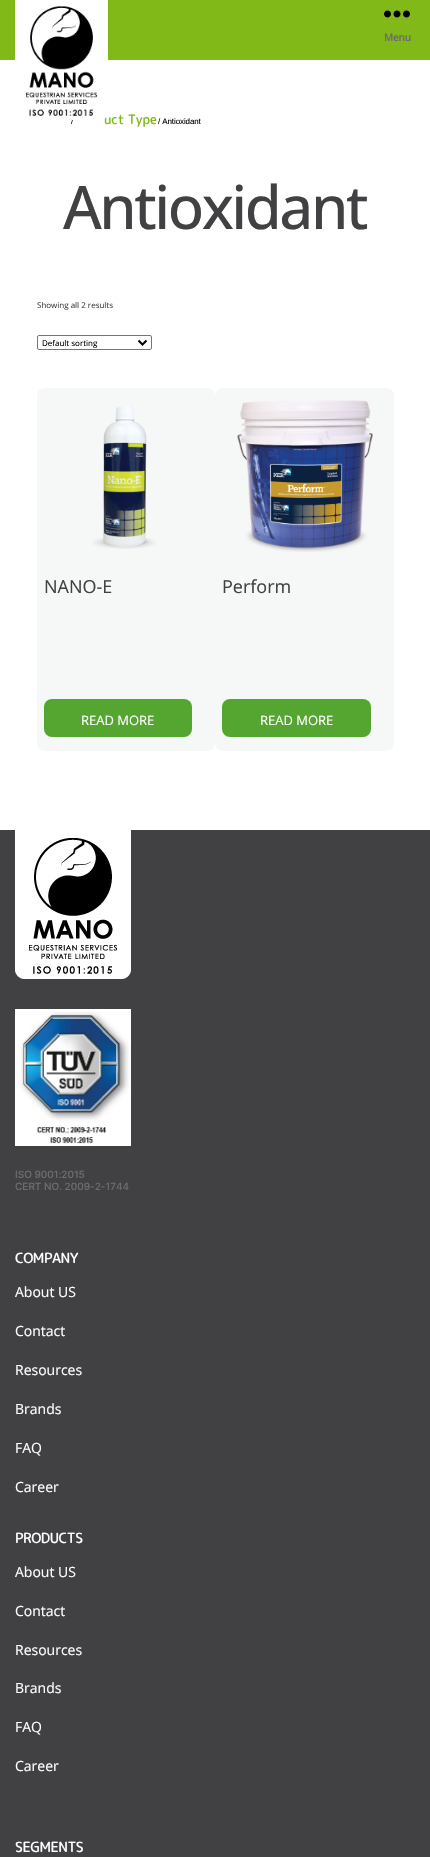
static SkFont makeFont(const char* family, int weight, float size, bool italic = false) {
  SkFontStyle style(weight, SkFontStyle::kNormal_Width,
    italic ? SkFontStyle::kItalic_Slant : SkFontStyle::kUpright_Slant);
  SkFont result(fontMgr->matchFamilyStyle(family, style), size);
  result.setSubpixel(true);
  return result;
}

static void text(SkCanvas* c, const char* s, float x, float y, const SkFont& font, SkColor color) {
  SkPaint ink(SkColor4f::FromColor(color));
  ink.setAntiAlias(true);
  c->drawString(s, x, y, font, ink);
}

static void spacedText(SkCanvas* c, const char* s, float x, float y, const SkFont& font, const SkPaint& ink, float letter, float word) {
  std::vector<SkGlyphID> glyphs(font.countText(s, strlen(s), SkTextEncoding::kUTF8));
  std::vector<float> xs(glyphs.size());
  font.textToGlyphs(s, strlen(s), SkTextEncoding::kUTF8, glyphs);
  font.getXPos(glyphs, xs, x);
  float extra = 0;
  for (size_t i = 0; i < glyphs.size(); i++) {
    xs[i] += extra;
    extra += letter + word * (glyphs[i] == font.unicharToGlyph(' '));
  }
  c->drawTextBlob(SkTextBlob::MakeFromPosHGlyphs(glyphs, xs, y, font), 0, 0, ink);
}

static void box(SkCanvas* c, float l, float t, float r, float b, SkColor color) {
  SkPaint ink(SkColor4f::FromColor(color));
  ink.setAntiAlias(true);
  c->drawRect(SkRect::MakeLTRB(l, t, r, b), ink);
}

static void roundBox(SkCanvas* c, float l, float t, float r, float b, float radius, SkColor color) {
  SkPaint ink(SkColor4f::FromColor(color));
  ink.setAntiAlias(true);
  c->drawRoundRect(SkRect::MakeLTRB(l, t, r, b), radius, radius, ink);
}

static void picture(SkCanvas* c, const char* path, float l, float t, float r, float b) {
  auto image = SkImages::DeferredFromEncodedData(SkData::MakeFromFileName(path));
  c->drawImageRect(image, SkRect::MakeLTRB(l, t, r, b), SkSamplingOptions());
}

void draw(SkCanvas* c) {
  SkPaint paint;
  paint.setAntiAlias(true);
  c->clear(0xffffffff);
  box(c, 0, 0, 430, 60, 0xff80b918);
  SkFont face1 = makeFont("Liberation Sans", 400, 8);
  paint.setColor(0xff000000);
  spacedText(c, "/", 71, 124, face1, paint, -0.1f, 0);
  SkFont face2 = makeFont("Rounded Mplus 1c", 500, 13);
  paint.setColor(0xff80b918);
  spacedText(c, "uct Type", 104, 124, face2, paint, -0.1f, 0);
  picture(c, "img_01.png", 15, 0, 108, 120);
  picture(c, "img_02.png", 384, 10, 410, 18);
  SkFont face3 = makeFont("Open Sans", 700, 10);
  paint.setColor(0xff6d6d6d);
  spacedText(c, "Menu", 384, 41, face3, paint, -0.1f, 0);
  paint.setColor(0xff000000);
  spacedText(c, "/ Antioxidant", 158, 124, face1, paint, -0.1f, 0);
  SkFont face4 = makeFont("Open Sans", 500, 60);
  paint.setColor(0xff414042);
  spacedText(c, "Antioxidant", 63, 229, face4, paint, -2.5f, 0);
  SkFont face5 = makeFont("Open Sans", 400, 8);
  text(c, "Showing all 2 results", 37, 308, face5, 0xff414042);
  paint.setStyle(SkPaint::kStroke_Style);
  paint.setStrokeWidth(1);
  paint.setColor(0xff767676);
  c->drawRoundRect(SkRect::MakeLTRB(37.5f, 335.5f, 151.5f, 349.5f), 1.5f, 1.5f, paint);
  paint.setStrokeWidth(2);
  paint.setColor(0xff000000);
  c->drawPath(SkPathBuilder().moveTo(138.5f, 340.5f).lineTo(142.5f, 344.5f).lineTo(146.5f, 340.5f).detach(), paint);
  SkFont face6 = makeFont("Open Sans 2", 400, 8);
  text(c, "Default sorting", 42, 346, face6, 0xff000000);
  roundBox(c, 37, 388, 215, 751, 8, 0xfff6f7f7);
  picture(c, "img_03.png", 93, 407, 156, 549);
  SkFont face7 = makeFont("Open Sans", 400, 18);
  text(c, "NANO-E", 44, 593, face7, 0xff414042);
  roundBox(c, 44, 699, 192, 737, 8, 0xff55a630);
  SkFont face8 = makeFont("Open Sans", 400, 13);
  text(c, "READ MORE", 81, 725, face8, 0xffffffff);
  roundBox(c, 215, 388, 394, 751, 8, 0xfff6f7f7);
  picture(c, "img_04.png", 237, 400, 373, 552);
  text(c, "Perform", 222, 593, face7, 0xff414042);
  roundBox(c, 222, 699, 371, 737, 8, 0xff55a630);
  text(c, "READ MORE", 260, 725, face8, 0xffffffff);
  box(c, 0, 830, 430, 1857, 0xff414042);
  picture(c, "img_05.png", 15, 830, 131, 979);
  picture(c, "img_06.png", 15, 1009, 131, 1146);
  SkFont face9 = makeFont("Inter", 500, 10);
  text(c, "ISO 9001:2015", 15, 1178, face9, 0xff6d6d6d);
  text(c, "CERT NO. 2009-2-1744", 15, 1190, face9, 0xff6d6d6d);
  SkFont face10 = makeFont("Rounded Mplus 1c", 500, 14);
  paint.setStyle(SkPaint::kFill_Style);
  paint.setColor(0xffffffff);
  spacedText(c, "COMPANY", 15, 1263, face10, paint, -0.5f, 0);
  SkFont face11 = makeFont("Open Sans", 400, 14);
  text(c, "About US", 15, 1297, face11, 0xffffffff);
  text(c, "Contact", 15, 1336, face11, 0xffffffff);
  text(c, "Resources", 15, 1375, face11, 0xffffffff);
  text(c, "Brands", 15, 1414, face11, 0xffffffff);
  text(c, "FAQ", 15, 1453, face11, 0xffffffff);
  text(c, "Career", 15, 1492, face11, 0xffffffff);
  spacedText(c, "PRODUCTS", 15, 1543, face10, paint, -0.5f, 0);
  text(c, "About US", 15, 1577, face11, 0xffffffff);
  text(c, "Contact", 15, 1616, face11, 0xffffffff);
  text(c, "Resources", 15, 1655, face11, 0xffffffff);
  text(c, "Brands", 15, 1693, face11, 0xffffffff);
  text(c, "FAQ", 15, 1732, face11, 0xffffffff);
  text(c, "Career", 15, 1771, face11, 0xffffffff);
  spacedText(c, "SEGMENTS", 15, 1852, face10, paint, -0.5f, 0);
}
